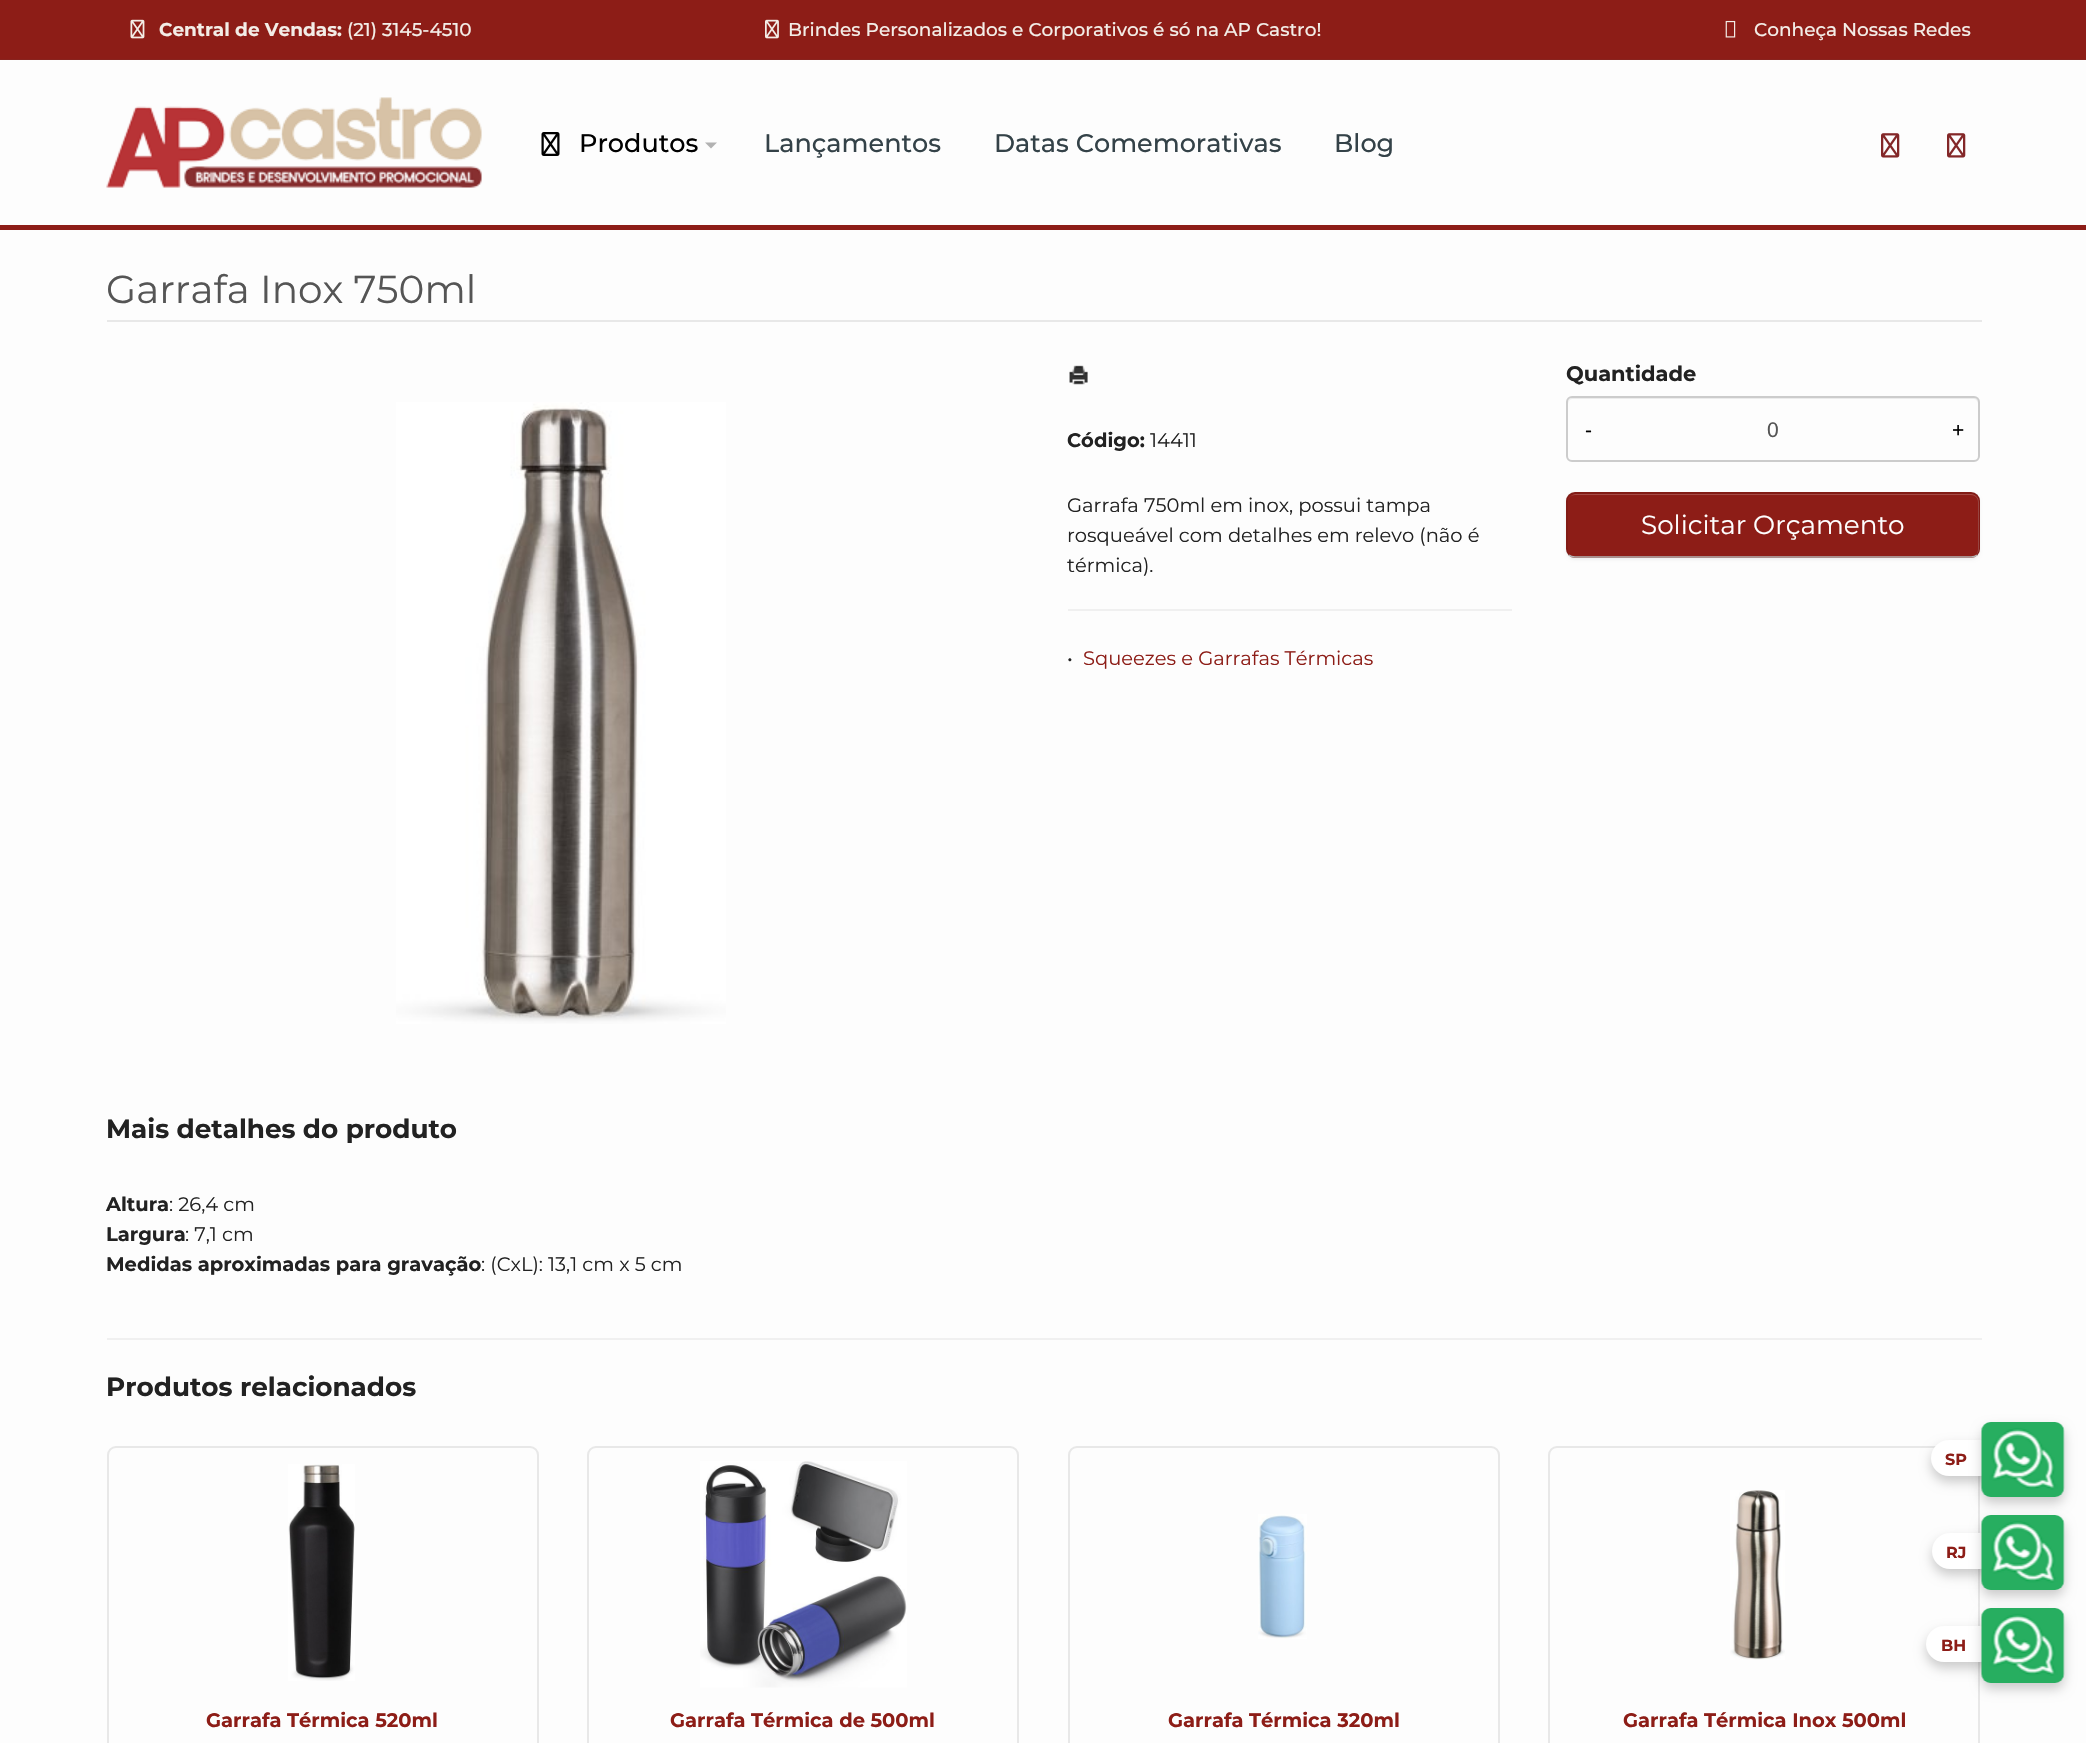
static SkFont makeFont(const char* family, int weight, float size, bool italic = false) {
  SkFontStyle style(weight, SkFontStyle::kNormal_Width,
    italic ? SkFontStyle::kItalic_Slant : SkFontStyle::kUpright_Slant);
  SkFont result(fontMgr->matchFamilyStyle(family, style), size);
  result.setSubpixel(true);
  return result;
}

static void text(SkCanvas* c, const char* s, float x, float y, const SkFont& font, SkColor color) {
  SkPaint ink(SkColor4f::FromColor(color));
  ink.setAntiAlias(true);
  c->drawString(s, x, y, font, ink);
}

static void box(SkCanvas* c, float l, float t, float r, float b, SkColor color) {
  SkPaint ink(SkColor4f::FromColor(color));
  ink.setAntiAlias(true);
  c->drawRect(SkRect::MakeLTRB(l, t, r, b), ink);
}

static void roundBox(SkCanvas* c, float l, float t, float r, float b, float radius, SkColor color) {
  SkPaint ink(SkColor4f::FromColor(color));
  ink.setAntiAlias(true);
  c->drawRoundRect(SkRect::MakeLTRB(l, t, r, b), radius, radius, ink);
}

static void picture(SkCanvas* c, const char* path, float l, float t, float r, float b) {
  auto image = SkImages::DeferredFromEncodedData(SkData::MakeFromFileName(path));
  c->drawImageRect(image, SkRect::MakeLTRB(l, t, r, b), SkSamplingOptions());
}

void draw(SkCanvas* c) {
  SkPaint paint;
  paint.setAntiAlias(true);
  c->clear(0xfffdfdfd);
  box(c, 0, 0, 2086, 60, 0xff8d1d17);
  box(c, 0, 59, 2086, 60, 0x1a5a5a5a);
  picture(c, "img_01.png", 130, 19, 145, 39);
  SkFont face1 = makeFont("Montserrat", 700, 18.5f);
  text(c, "Central de Vendas:", 159, 36, face1, 0xfff3ede7);
  SkFont face2 = makeFont("Montserrat", 500, 18.5f);
  text(c, "(21) 3145-4510", 347, 36, face2, 0xfff3ede7);
  picture(c, "img_02.png", 765, 19, 779, 39);
  text(c, "Brindes Personalizados e Corporativos é só na AP Castro!", 788, 36, face2, 0xfff3ede7);
  picture(c, "img_03.png", 1725, 20, 1736, 38);
  text(c, "Conheça Nossas Redes", 1754, 36, face2, 0xfff3ede7);
  box(c, 0, 225, 2086, 230, 0xff8d1d17);
  picture(c, "img_04.png", 106, 97, 482, 188);
  picture(c, "img_05.png", 541, 132, 560, 156);
  SkFont face3 = makeFont("Montserrat", 500, 25.5f);
  text(c, "Produtos", 579, 152, face3, 0xff000000);
  paint.setColor(0xffb2b2b2);
  c->drawPath(SkPathBuilder().moveTo(705, 142.5f).lineTo(717, 142.5f).lineTo(711, 148.5f).close().detach(), paint);
  text(c, "Lançamentos", 764, 152, face3, 0xff344248);
  text(c, "Datas Comemorativas", 994, 152, face3, 0xff344248);
  text(c, "Blog", 1334, 152, face3, 0xff344248);
  picture(c, "img_06.png", 1881, 133, 1900, 158);
  picture(c, "img_06.png", 1947, 133, 1966, 158);
  box(c, 107, 320, 1982, 322, 0xffe8e8e8);
  SkFont face4 = makeFont("Montserrat", 400, 39);
  text(c, "Garrafa Inox 750ml", 106, 303, face4, 0xff555555);
  picture(c, "img_07.png", 396, 402, 726, 1024);
  picture(c, "img_08.png", 1069, 365, 1088, 385);
  SkFont face5 = makeFont("Montserrat", 700, 19.5f);
  text(c, "Código:", 1067, 447, face5, 0xff222222);
  SkFont face6 = makeFont("Montserrat", 400, 19.5f);
  text(c, "14411", 1150, 447, face6, 0xff222222);
  text(c, "Garrafa 750ml em inox, possui tampa", 1067, 512, face6, 0xff222222);
  text(c, "rosqueável com detalhes em relevo (não é", 1067, 542, face6, 0xff222222);
  text(c, "térmica).", 1067, 572, face6, 0xff222222);
  box(c, 1068, 609, 1512, 611, 0xfff0f0f0);
  text(c, "•", 1067, 665, face6, 0xff222222);
  text(c, "Squeezes e Garrafas Térmicas", 1083, 665, face6, 0xff8d1d17);
  SkFont face7 = makeFont("Montserrat", 700, 21);
  text(c, "Quantidade", 1566, 381, face7, 0xff222222);
  paint.setColor(0xffececec);
  c->drawPath(SkPathBuilder().moveTo(1572, 399).lineTo(1974, 399).cubicTo(1976, 399, 1978, 401, 1978, 404).lineTo(1978, 459).cubicTo(1979, 458, 1979, 457, 1979, 456).lineTo(1979, 403).cubicTo(1979, 400, 1977, 398, 1974, 398).lineTo(1573, 398).cubicTo(1570, 398, 1568, 400, 1568, 403).lineTo(1568, 404).cubicTo(1568, 401, 1570, 399, 1572, 399).close().detach(), paint);
  paint.setStyle(SkPaint::kStroke_Style);
  paint.setStrokeWidth(2);
  paint.setColor(0xffcccccc);
  c->drawRoundRect(SkRect::MakeLTRB(1567, 397, 1979, 461), 5, 5, paint);
  SkFont face8 = makeFont("Liberation Sans", 400, 21);
  text(c, "-", 1585, 437, face8, 0xff000000);
  text(c, "0", 1767, 437, face8, 0xff555555);
  text(c, "+", 1952, 437, face8, 0xff000000);
  paint.setStyle(SkPaint::kFill_Style);
  paint.setColor(0x0d000000);
  paint.setMaskFilter(SkMaskFilter::MakeBlur(kNormal_SkBlurStyle, 1.5f));
  c->drawRoundRect(SkRect::MakeLTRB(1566, 494, 1980, 560), 9, 9, paint);
  paint.setMaskFilter(nullptr);
  roundBox(c, 1566, 492, 1980, 558, 9, 0xff8d1d17);
  paint.setColor(0xffa44a45);
  c->drawPath(SkPathBuilder().moveTo(1575, 495).lineTo(1971, 495).cubicTo(1975, 495, 1978, 498, 1978, 502).lineTo(1978, 550).lineTo(1977, 554).cubicTo(1978, 553, 1979, 551, 1979, 549).lineTo(1979, 502).cubicTo(1979, 498, 1975, 494, 1971, 494).lineTo(1576, 494).cubicTo(1572, 494, 1568, 498, 1568, 502).cubicTo(1568, 498, 1571, 495, 1575, 495).close().detach(), paint);
  paint.setStyle(SkPaint::kStroke_Style);
  paint.setStrokeWidth(1.5f);
  paint.setColor(0xffb3b3b3);
  c->drawPath(SkPathBuilder().moveTo(1977, 555).cubicTo(1975.5f, 556.5f, 1973, 557, 1971, 557).lineTo(1575, 557).cubicTo(1573, 557, 1570.5f, 556.5f, 1569, 555).detach(), paint);
  paint.setColor(0x1a000000);
  c->drawPath(SkPathBuilder().moveTo(1569, 555).cubicTo(1567.5f, 553.5f, 1567, 551, 1567, 549).lineTo(1567, 501).cubicTo(1567, 499, 1567.5f, 496.5f, 1569, 495).cubicTo(1570.5f, 493.5f, 1573, 493, 1575, 493).lineTo(1971, 493).cubicTo(1973, 493, 1975.5f, 493.5f, 1977, 495).cubicTo(1978.5f, 496.5f, 1979, 499, 1979, 501).lineTo(1979, 549).cubicTo(1979, 551, 1978.5f, 553.5f, 1977, 555).detach(), paint);
  SkFont face9 = makeFont("Montserrat", 400, 26.25f);
  text(c, "Solicitar Orçamento", 1641, 534, face9, 0xffffffff);
  SkFont face10 = makeFont("Montserrat", 700, 26.25f);
  text(c, "Mais detalhes do produto", 106, 1138, face10, 0xff222222);
  text(c, "Altura", 106, 1211, face5, 0xff222222);
  text(c, ": 26,4 cm", 169, 1211, face6, 0xff222222);
  text(c, "Largura", 106, 1241, face5, 0xff222222);
  text(c, ": 7,1 cm", 185, 1241, face6, 0xff222222);
  text(c, "Medidas aproximadas para gravação", 106, 1271, face5, 0xff222222);
  text(c, ": (CxL): 13,1 cm x 5 cm", 481, 1271, face6, 0xff222222);
  box(c, 107, 1338, 1982, 1340, 0xfff0f0f0);
  text(c, "Produtos relacionados", 106, 1396, face10, 0xff222222);
  paint.setStrokeWidth(2);
  paint.setColor(0xffe8e8e8);
  c->drawRoundRect(SkRect::MakeLTRB(108, 1447, 538, 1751), 8, 8, paint);
  picture(c, "img_09.png", 288, 1464, 355, 1681);
  text(c, "Garrafa Térmica 520ml", 206, 1727, face5, 0xff8d1d17);
  c->drawRoundRect(SkRect::MakeLTRB(588, 1447, 1018, 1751), 8, 8, paint);
  picture(c, "img_10.png", 700, 1461, 907, 1688);
  text(c, "Garrafa Térmica de 500ml", 670, 1727, face5, 0xff8d1d17);
  c->drawRoundRect(SkRect::MakeLTRB(1069, 1447, 1499, 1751), 8, 8, paint);
  picture(c, "img_11.png", 1258, 1514, 1307, 1639);
  text(c, "Garrafa Térmica 320ml", 1168, 1727, face5, 0xff8d1d17);
  c->drawRoundRect(SkRect::MakeLTRB(1549, 1447, 1979, 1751), 8, 8, paint);
  picture(c, "img_12.png", 1730, 1490, 1785, 1660);
  text(c, "Garrafa Térmica Inox 500ml", 1623, 1727, face5, 0xff8d1d17);
  paint.setStyle(SkPaint::kFill_Style);
  paint.setColor(0x33000000);
  paint.setMaskFilter(SkMaskFilter::MakeBlur(kNormal_SkBlurStyle, 6));
  c->drawRoundRect(SkRect::MakeLTRB(1931, 1446, 1998, 1482), 18, 18, paint);
  paint.setMaskFilter(nullptr);
  roundBox(c, 1931, 1440, 1998, 1476, 18, 0xffffffff);
  paint.setMaskFilter(SkMaskFilter::MakeBlur(kNormal_SkBlurStyle, 6));
  c->drawRoundRect(SkRect::MakeLTRB(1982, 1428, 2064, 1503), 9, 9, paint);
  paint.setMaskFilter(nullptr);
  SkFont face11 = makeFont("Montserrat", 700, 16);
  text(c, "SP", 1945, 1465, face11, 0xff8d1d17);
  picture(c, "img_13.png", 1981, 1422, 2065, 1497);
  paint.setMaskFilter(SkMaskFilter::MakeBlur(kNormal_SkBlurStyle, 6));
  c->drawRoundRect(SkRect::MakeLTRB(1932, 1539, 1998, 1575), 18, 18, paint);
  paint.setMaskFilter(nullptr);
  roundBox(c, 1932, 1533, 1998, 1569, 18, 0xffffffff);
  paint.setMaskFilter(SkMaskFilter::MakeBlur(kNormal_SkBlurStyle, 6));
  c->drawRoundRect(SkRect::MakeLTRB(1982, 1521, 2064, 1596), 9, 9, paint);
  paint.setMaskFilter(nullptr);
  text(c, "RJ", 1946, 1558, face11, 0xff8d1d17);
  picture(c, "img_14.png", 1981, 1515, 2065, 1590);
  paint.setMaskFilter(SkMaskFilter::MakeBlur(kNormal_SkBlurStyle, 6));
  c->drawRoundRect(SkRect::MakeLTRB(1926, 1632, 1998, 1668), 18, 18, paint);
  paint.setMaskFilter(nullptr);
  roundBox(c, 1926, 1626, 1998, 1662, 18, 0xffffffff);
  paint.setMaskFilter(SkMaskFilter::MakeBlur(kNormal_SkBlurStyle, 6));
  c->drawRoundRect(SkRect::MakeLTRB(1982, 1614, 2064, 1689), 9, 9, paint);
  paint.setMaskFilter(nullptr);
  text(c, "BH", 1941, 1651, face11, 0xff8d1d17);
  picture(c, "img_14.png", 1981, 1608, 2065, 1683);
}
